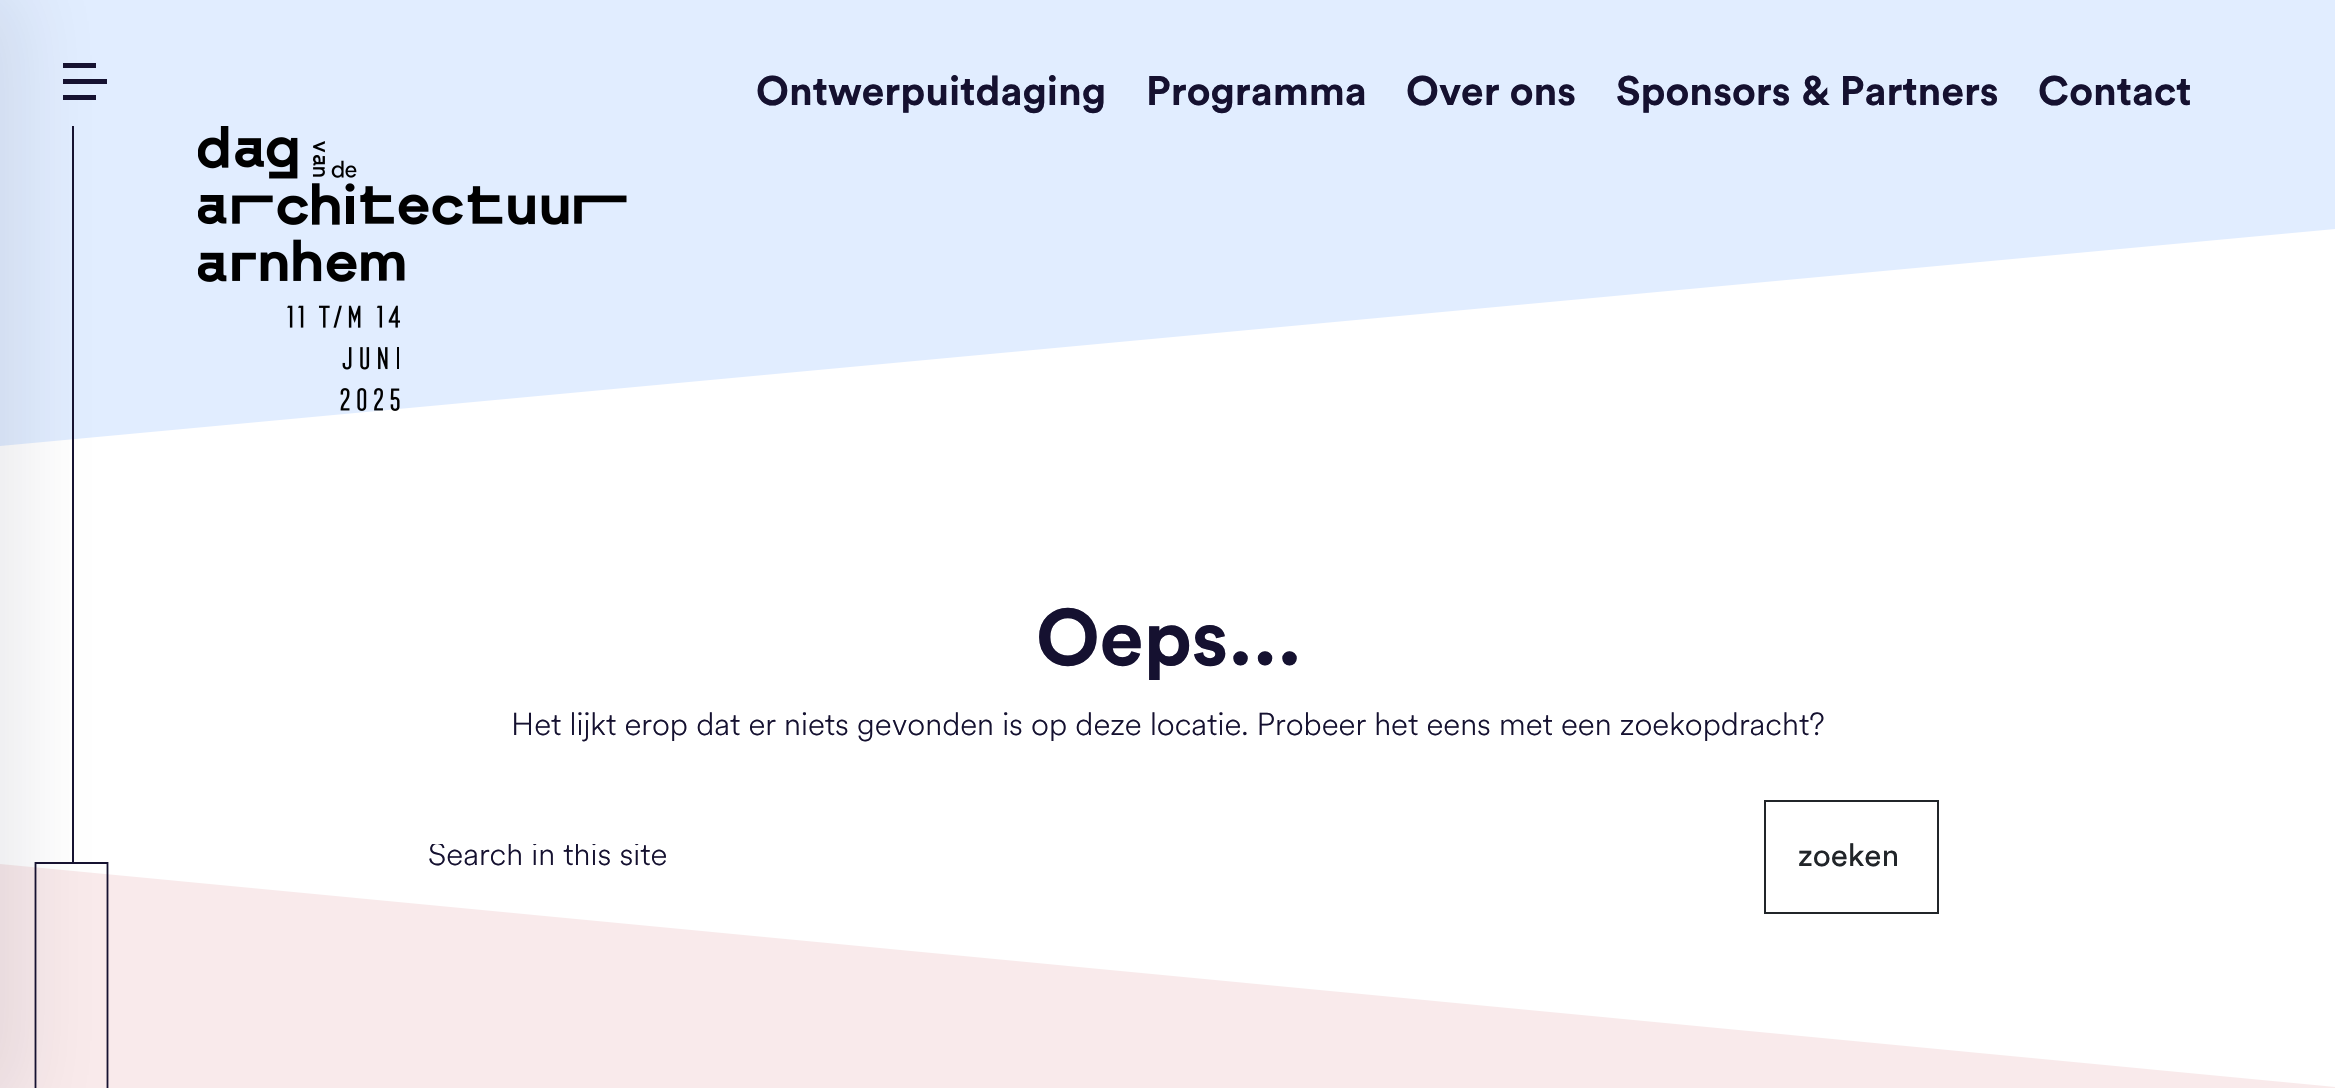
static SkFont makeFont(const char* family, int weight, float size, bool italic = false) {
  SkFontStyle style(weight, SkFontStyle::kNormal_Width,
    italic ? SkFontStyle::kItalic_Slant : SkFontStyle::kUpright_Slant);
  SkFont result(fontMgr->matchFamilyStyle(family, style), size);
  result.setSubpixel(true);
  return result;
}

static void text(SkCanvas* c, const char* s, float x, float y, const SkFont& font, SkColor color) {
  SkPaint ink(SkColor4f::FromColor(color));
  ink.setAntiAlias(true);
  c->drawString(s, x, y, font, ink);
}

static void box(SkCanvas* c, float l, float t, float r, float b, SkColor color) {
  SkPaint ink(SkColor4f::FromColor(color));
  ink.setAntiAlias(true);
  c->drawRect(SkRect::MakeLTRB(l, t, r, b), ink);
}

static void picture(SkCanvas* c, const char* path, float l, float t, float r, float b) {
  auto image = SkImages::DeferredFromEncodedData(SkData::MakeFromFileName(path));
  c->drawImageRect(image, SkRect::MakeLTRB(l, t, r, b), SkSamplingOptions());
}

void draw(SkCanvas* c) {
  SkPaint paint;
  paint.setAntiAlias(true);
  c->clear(0xffffffff);
  paint.setColor(0xffe1edff);
  c->drawPath(SkPathBuilder(SkPathFillType::kEvenOdd).moveTo(-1, 0).lineTo(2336, 0).lineTo(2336, 229).lineTo(0, 446).close().detach(), paint);
  picture(c, "img_01.png", 198, 126, 627, 411);
  box(c, 63, 63, 96, 68, 0xff151130);
  box(c, 63, 79, 107, 84, 0xff151130);
  box(c, 63, 95, 96, 100, 0xff151130);
  box(c, 72, 126, 74, 863, 0xff151130);
  box(c, 0, 1087, 2335, 1088, 0xfff9eaeb);
  c->save();
  c->clipRect(SkRect::MakeLTRB(429, 844, 1733, 875));
  SkFont face1 = makeFont("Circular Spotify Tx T", 300, 31.5f);
  text(c, "Search in this site", 428, 865, face1, 0xff151130);
  c->restore();
  paint.setStyle(SkPaint::kStroke_Style);
  paint.setStrokeWidth(2);
  paint.setColor(0xff212529);
  c->drawRect(SkRect::MakeLTRB(1765, 801, 1938, 913), paint);
  SkFont face2 = makeFont("Circular", 400, 31.5f);
  text(c, "zoeken", 1798, 866, face2, 0xff212529);
  paint.setStyle(SkPaint::kFill_Style);
  paint.setColor(0xfff9eaeb);
  c->drawPath(SkPathBuilder(SkPathFillType::kEvenOdd).moveTo(0, 864).lineTo(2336, 1087).lineTo(0, 1087).close().detach(), paint);
  paint.setStyle(SkPaint::kStroke_Style);
  paint.setStrokeWidth(1.8f);
  paint.setColor(0xff151130);
  c->drawPath(SkPathBuilder().moveTo(35.5f, 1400).lineTo(35.5f, 863).lineTo(107.5f, 863).lineTo(107.5f, 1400).close().detach(), paint);
  paint.setStyle(SkPaint::kFill_Style);
  paint.setColor(0x1a151130);
  paint.setMaskFilter(SkMaskFilter::MakeBlur(kNormal_SkBlurStyle, 44));
  c->drawRect(SkRect::MakeLTRB(-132, -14, 18, 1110), paint);
  paint.setMaskFilter(nullptr);
  SkFont face3 = makeFont("Circular", 700, 40.75f);
  text(c, "Ontwerpuitdaging", 756, 105, face3, 0xff151130);
  text(c, "Programma", 1146, 105, face3, 0xff151130);
  text(c, "Over ons", 1406, 105, face3, 0xff151130);
  text(c, "Sponsors & Partners", 1616, 105, face3, 0xff151130);
  text(c, "Contact", 2038, 105, face3, 0xff151130);
  SkFont face4 = makeFont("Circular", 700, 79);
  text(c, "Oeps...", 1036, 665, face4, 0xff151130);
  text(c, "Het lijkt erop dat er niets gevonden is op deze locatie. Probeer het eens met een zoekopdracht?", 511, 735, face1, 0xff151130);
}
